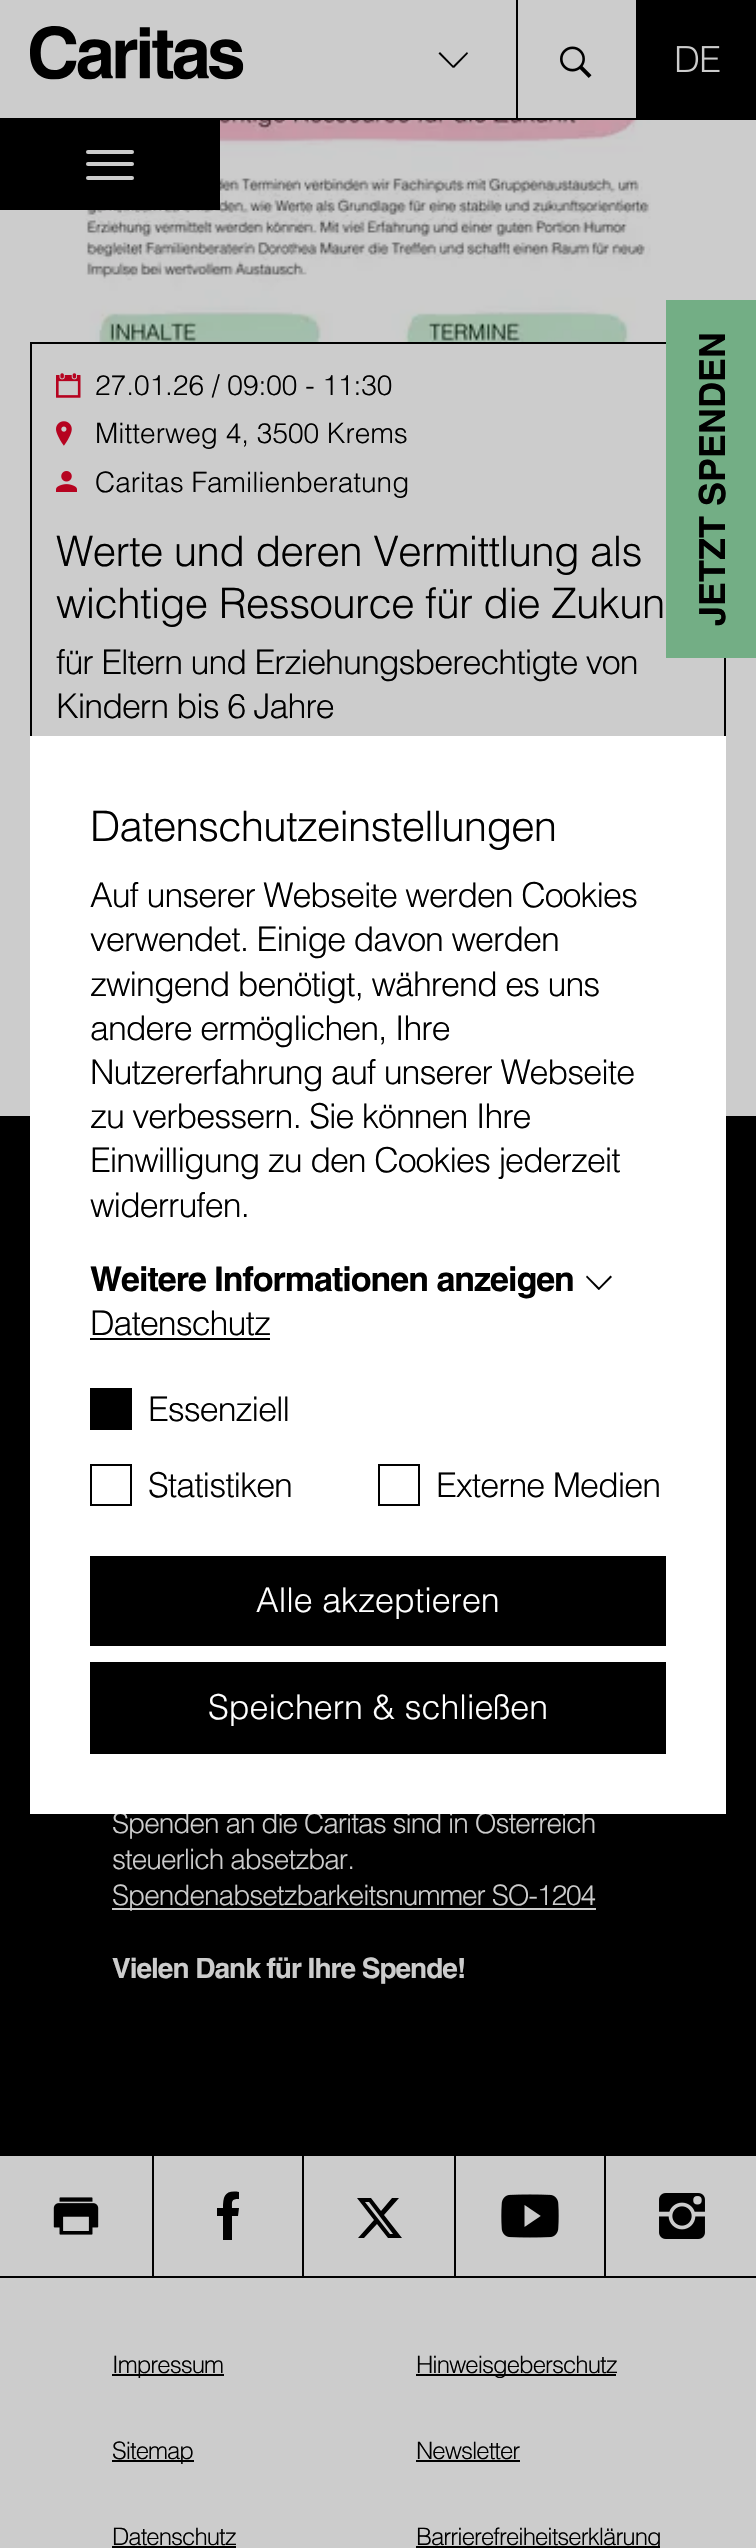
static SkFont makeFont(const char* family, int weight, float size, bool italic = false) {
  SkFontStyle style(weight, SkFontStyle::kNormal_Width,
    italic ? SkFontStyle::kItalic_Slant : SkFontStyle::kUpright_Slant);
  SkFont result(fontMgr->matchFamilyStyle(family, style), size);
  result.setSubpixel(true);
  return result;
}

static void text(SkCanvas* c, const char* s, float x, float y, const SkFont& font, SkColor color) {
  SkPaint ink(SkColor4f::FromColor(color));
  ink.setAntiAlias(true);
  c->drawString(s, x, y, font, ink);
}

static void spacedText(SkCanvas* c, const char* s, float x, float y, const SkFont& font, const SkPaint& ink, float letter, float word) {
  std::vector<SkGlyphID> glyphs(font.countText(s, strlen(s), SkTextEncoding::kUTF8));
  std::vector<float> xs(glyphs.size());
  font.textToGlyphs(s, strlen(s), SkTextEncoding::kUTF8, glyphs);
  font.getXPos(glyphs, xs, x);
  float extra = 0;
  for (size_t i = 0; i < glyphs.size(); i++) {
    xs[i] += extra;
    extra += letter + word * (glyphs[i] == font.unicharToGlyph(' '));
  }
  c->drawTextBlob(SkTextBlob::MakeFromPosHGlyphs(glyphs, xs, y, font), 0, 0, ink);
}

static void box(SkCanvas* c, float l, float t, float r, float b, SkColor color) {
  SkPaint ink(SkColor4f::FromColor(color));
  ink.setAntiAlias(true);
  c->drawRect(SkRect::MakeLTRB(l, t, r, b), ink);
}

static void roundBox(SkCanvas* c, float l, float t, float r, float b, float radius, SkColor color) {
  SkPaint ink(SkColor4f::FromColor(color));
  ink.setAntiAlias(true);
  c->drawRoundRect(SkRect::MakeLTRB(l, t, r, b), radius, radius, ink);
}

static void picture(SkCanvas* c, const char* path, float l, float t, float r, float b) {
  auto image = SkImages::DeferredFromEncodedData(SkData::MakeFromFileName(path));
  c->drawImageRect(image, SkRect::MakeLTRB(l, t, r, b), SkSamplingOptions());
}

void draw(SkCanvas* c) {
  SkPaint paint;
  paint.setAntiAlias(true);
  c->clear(0xffcccccc);
  picture(c, "img_01.png", 85, 120, 651, 342);
  paint.setStyle(SkPaint::kStroke_Style);
  paint.setStrokeWidth(2);
  paint.setColor(0xff000000);
  c->drawRect(SkRect::MakeLTRB(31, 343, 725, 873), paint);
  picture(c, "img_02.png", 56, 373, 81, 398);
  SkFont face1 = makeFont("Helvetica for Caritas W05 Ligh", 300, 28);
  text(c, "27.01.26 / 09:00 - 11:30", 95, 395, face1, 0xff000000);
  picture(c, "img_03.png", 56, 421, 72, 446);
  text(c, "Mitterweg 4, 3500 Krems", 95, 443, face1, 0xff000000);
  picture(c, "img_04.png", 56, 471, 77, 492);
  text(c, "Caritas Familienberatung", 95, 492, face1, 0xff000000);
  SkFont face2 = makeFont("Helvetica for Caritas W05 Ligh", 300, 42);
  paint.setStyle(SkPaint::kFill_Style);
  spacedText(c, "Werte und deren Vermittlung als", 56, 566, face2, paint, -0.6f, 0);
  spacedText(c, "wichtige Ressource für die Zukun", 56, 618, face2, paint, -0.6f, 0);
  SkFont face3 = makeFont("Helvetica for Caritas W05 Ligh", 300, 34);
  spacedText(c, "für Eltern und Erziehungsberechtigte von", 56, 674, face3, paint, -1, 0);
  spacedText(c, "Kindern bis 6 Jahre", 56, 718, face3, paint, -1, 0);
  box(c, 0, 118, 756, 120, 0xff000000);
  picture(c, "img_05.png", 30, 26, 244, 80);
  c->drawPath(SkPathBuilder().moveTo(440, 52).lineTo(454, 66.5f).lineTo(453, 68).lineTo(438.5f, 53.5f).close().detach(), paint);
  c->drawPath(SkPathBuilder().moveTo(452.5f, 66.5f).lineTo(467, 52).lineTo(468, 53.5f).lineTo(454, 68).close().detach(), paint);
  box(c, 516, 0, 518, 118, 0xff000000);
  picture(c, "img_06.png", 560, 46, 592, 78);
  box(c, 636, 0, 756, 118, 0xff000000);
  picture(c, "img_07.png", 676, 46, 720, 72);
  box(c, 0, 120, 220, 210, 0xff000000);
  roundBox(c, 86, 150, 134, 154, 2, 0xffcccccc);
  roundBox(c, 86, 162, 134, 166, 2, 0xffcccccc);
  roundBox(c, 86, 176, 134, 180, 2, 0xffcccccc);
  box(c, 666, 300, 756, 658, 0xff73ae85);
  SkFont face4 = makeFont("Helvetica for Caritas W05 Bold", 700, 36);
  c->save();
  c->rotate(-90, 725, 626);
  text(c, "JETZT SPENDEN", 725, 626, face4, 0xff000000);
  c->restore();
  box(c, 0, 1116, 756, 2156, 0xff000000);
  paint.setColor(0xffcccccc);
  spacedText(c, "Spenden an die Caritas sind in Österreich", 112, 1833, face1, paint, -1, 0);
  box(c, 30, 736, 726, 1814, 0xffffffff);
  paint.setColor(0xff000000);
  spacedText(c, "Datenschutzeinstellungen", 90, 841, face2, paint, -0.8f, 0);
  spacedText(c, "Auf unserer Webseite werden Cookies", 90, 907, face3, paint, -1, 0);
  spacedText(c, "verwendet. Einige davon werden", 90, 951, face3, paint, -1, 0);
  spacedText(c, "zwingend benötigt, während es uns", 90, 996, face3, paint, -1, 0);
  spacedText(c, "andere ermöglichen, Ihre", 90, 1040, face3, paint, -1, 0);
  spacedText(c, "Nutzererfahrung auf unserer Webseite", 90, 1084, face3, paint, -1, 0);
  spacedText(c, "zu verbessern. Sie können Ihre", 90, 1128, face3, paint, -1, 0);
  spacedText(c, "Einwilligung zu den Cookies jederzeit", 90, 1172, face3, paint, -1, 0);
  spacedText(c, "widerrufen.", 90, 1217, face3, paint, -1, 0);
  SkFont face5 = makeFont("Helvetica for Caritas W05 Bold", 700, 34);
  spacedText(c, "Weitere Informationen anzeigen", 90, 1291, face5, paint, -1, 0);
  c->drawPath(SkPathBuilder().moveTo(587, 1275.5f).lineTo(600, 1288.5f).lineTo(598.5f, 1290).lineTo(586, 1277).close().detach(), paint);
  c->drawPath(SkPathBuilder().moveTo(598, 1288.5f).lineTo(610.5f, 1275.5f).lineTo(612, 1277).lineTo(599, 1290).close().detach(), paint);
  spacedText(c, "Datenschutz", 90, 1335, face3, paint, -1, 0);
  box(c, 90, 1338, 270, 1340, 0xff000000);
  box(c, 90, 1388, 132, 1430, 0xff000000);
  spacedText(c, "Essenziell", 148, 1421, face3, paint, -1, 0);
  paint.setStyle(SkPaint::kStroke_Style);
  c->drawRect(SkRect::MakeLTRB(91, 1465, 131, 1505), paint);
  paint.setStyle(SkPaint::kFill_Style);
  spacedText(c, "Statistiken", 148, 1497, face3, paint, -1, 0);
  paint.setStyle(SkPaint::kStroke_Style);
  c->drawRect(SkRect::MakeLTRB(379, 1465, 419, 1505), paint);
  paint.setStyle(SkPaint::kFill_Style);
  spacedText(c, "Externe Medien", 436, 1497, face3, paint, -1, 0);
  box(c, 90, 1556, 666, 1646, 0xff000000);
  text(c, "Alle akzeptieren", 256, 1612, face3, 0xffffffff);
  box(c, 90, 1662, 666, 1754, 0xff000000);
  text(c, "Speichern & schließen", 208, 1719, face3, 0xffffffff);
  paint.setColor(0xffcccccc);
  spacedText(c, "steuerlich absetzbar.", 112, 1869, face1, paint, -1, 0);
  box(c, 112, 1908, 596, 1910, 0xffcccccc);
  spacedText(c, "Spendenabsetzbarkeitsnummer SO-1204", 112, 1905, face1, paint, -1, 0);
  SkFont face6 = makeFont("Helvetica for Caritas W05 Bold", 700, 28);
  spacedText(c, "Vielen Dank für Ihre Spende!", 112, 1978, face6, paint, -1, 0);
  box(c, 0, 2276, 756, 2278, 0xff000000);
  picture(c, "img_08.png", 53, 2197, 99, 2235);
  box(c, 152, 2156, 154, 2276, 0xff000000);
  paint.setColor(0xff000000);
  c->drawPath(SkPathBuilder().moveTo(223, 2240).lineTo(223, 2216).lineTo(217, 2216).lineTo(217, 2208).lineTo(223, 2208).cubicTo(223, 2196, 225, 2190, 239, 2192).lineTo(239, 2199).cubicTo(231, 2199, 232, 2201, 232, 2208).lineTo(239, 2208).lineTo(238, 2216).lineTo(232, 2216).lineTo(232, 2240).close().detach(), paint);
  box(c, 302, 2156, 304, 2276, 0xff000000);
  c->drawPath(SkPathBuilder().moveTo(392, 2198).lineTo(399, 2198).lineTo(384, 2215).lineTo(402, 2238).lineTo(388, 2238).lineTo(377, 2224).lineTo(364, 2238).lineTo(358, 2238).lineTo(374, 2220).lineTo(357, 2198).lineTo(371, 2198).lineTo(381, 2211).close().moveTo(390, 2234).lineTo(393, 2234).lineTo(369, 2202).lineTo(365, 2202).close().detach(), paint);
  box(c, 454, 2156, 456, 2276, 0xff000000);
  picture(c, "img_09.png", 501, 2194, 559, 2238);
  box(c, 604, 2156, 606, 2276, 0xff000000);
  picture(c, "img_10.png", 659, 2193, 705, 2239);
  box(c, 112, 2374, 224, 2376, 0xff000000);
  SkFont face7 = makeFont("Helvetica for Caritas W05 Ligh", 300, 24);
  spacedText(c, "Impressum", 112, 2373, face7, paint, -1, 0);
  box(c, 416, 2374, 616, 2376, 0xff000000);
  spacedText(c, "Hinweisgeberschutz", 416, 2373, face7, paint, -1, 0);
  box(c, 112, 2460, 194, 2462, 0xff000000);
  spacedText(c, "Sitemap", 112, 2459, face7, paint, -1, 0);
  spacedText(c, "Newsletter", 416, 2459, face7, paint, -1, 0);
  box(c, 416, 2460, 520, 2462, 0xff000000);
  spacedText(c, "Datenschutz", 112, 2545, face7, paint, -1, 0);
  box(c, 112, 2546, 236, 2548, 0xff000000);
  box(c, 416, 2546, 660, 2548, 0xff000000);
  spacedText(c, "Barrierefreiheitserklärung", 416, 2545, face7, paint, -1, 0);
}
